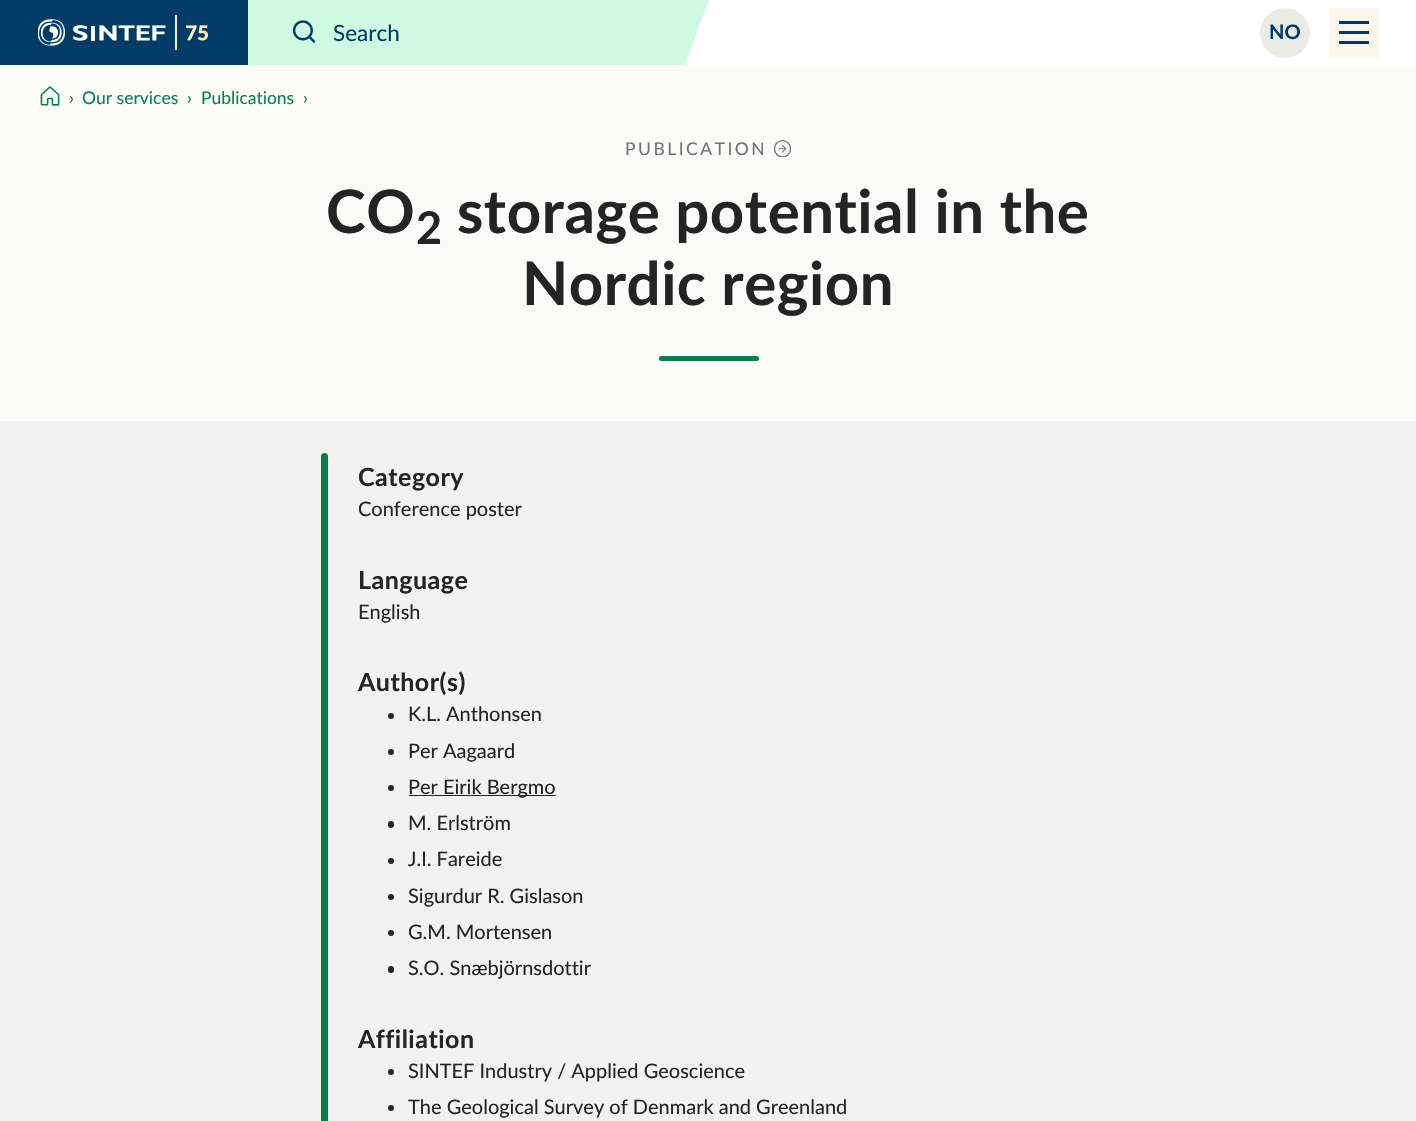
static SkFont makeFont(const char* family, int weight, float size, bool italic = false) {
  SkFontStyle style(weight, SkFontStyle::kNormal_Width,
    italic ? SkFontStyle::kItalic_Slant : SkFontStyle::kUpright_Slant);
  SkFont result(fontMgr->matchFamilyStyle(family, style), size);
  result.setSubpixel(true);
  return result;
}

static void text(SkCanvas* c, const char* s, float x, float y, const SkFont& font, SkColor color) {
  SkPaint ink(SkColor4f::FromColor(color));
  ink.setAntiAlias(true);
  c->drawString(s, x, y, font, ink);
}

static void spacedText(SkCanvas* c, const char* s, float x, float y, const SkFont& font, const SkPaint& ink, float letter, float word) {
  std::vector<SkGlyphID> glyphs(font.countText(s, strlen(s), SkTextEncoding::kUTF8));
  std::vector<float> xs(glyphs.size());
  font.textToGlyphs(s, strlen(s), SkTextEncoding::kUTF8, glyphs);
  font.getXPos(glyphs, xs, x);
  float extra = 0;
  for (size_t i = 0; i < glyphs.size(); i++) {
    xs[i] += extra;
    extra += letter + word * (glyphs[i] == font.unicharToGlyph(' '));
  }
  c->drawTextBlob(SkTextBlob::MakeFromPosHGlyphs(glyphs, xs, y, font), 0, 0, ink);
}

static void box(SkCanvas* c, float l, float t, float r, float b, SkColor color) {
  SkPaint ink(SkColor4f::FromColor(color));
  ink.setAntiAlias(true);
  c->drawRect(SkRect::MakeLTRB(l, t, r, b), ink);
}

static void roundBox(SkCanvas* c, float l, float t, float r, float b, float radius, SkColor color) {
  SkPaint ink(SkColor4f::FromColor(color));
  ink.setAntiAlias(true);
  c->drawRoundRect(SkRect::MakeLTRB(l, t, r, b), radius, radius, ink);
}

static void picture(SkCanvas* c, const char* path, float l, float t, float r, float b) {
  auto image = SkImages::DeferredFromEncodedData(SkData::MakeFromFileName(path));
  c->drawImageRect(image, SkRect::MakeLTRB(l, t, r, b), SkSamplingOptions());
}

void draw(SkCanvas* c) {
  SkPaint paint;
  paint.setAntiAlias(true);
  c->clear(0xfffbfbfa);
  box(c, 0, 0, 248, 65, 0xff003c65);
  picture(c, "img_01.png", 38, 15, 208, 50);
  box(c, 685, 0, 1416, 65, 0xffffffff);
  paint.setColor(0xffcdfae1);
  c->drawPath(SkPathBuilder().moveTo(271, 0).lineTo(709, 0).lineTo(685, 65).lineTo(248, 65).close().detach(), paint);
  picture(c, "img_02.png", 292, 20, 316, 43);
  box(c, 248, 0, 271, 65, 0xffcdfae1);
  SkFont face1 = makeFont("Lato", 400, 22.5f);
  text(c, "Search", 333, 41, face1, 0xff003c65);
  paint.setColor(0xffebebe6);
  c->drawCircle(1285, 33, 25, paint);
  SkFont face2 = makeFont("Lato", 700, 20);
  text(c, "NO", 1269, 39, face2, 0xff003c65);
  box(c, 1329, 8, 1379, 58, 0xfffbf7ed);
  box(c, 1339, 21, 1369, 24, 0xff003c65);
  box(c, 1339, 31, 1369, 34, 0xff003c65);
  box(c, 1339, 41, 1369, 44, 0xff003c65);
  picture(c, "img_03.png", 40, 86, 60, 106);
  SkFont face3 = makeFont("Lato", 400, 17.5f);
  text(c, "›", 69, 104, face3, 0xff05814f);
  text(c, "Our services", 82, 104, face3, 0xff05814f);
  text(c, "›", 187, 104, face3, 0xff05814f);
  text(c, "Publications", 201, 104, face3, 0xff05814f);
  text(c, "›", 303, 104, face3, 0xff05814f);
  paint.setColor(0xff737373);
  spacedText(c, "PUBLICATION", 625, 155, face3, paint, 2.5f, 0);
  picture(c, "img_04.png", 774, 140, 791, 158);
  SkFont face4 = makeFont("Lato", 700, 60);
  paint.setColor(0xff242424);
  spacedText(c, "CO", 326, 233, face4, paint, 0.5f, 0);
  SkFont face5 = makeFont("Lato", 700, 45);
  spacedText(c, "2", 416, 244, face5, paint, 0.5f, 0);
  spacedText(c, "storage potential in the", 457, 233, face4, paint, 0.5f, 0);
  spacedText(c, "Nordic region", 522, 305, face4, paint, 0.5f, 0);
  roundBox(c, 659, 356, 759, 361, 2.5f, 0xff05814f);
  box(c, 0, 421, 1416, 1121, 0xfff2f2f2);
  roundBox(c, 321, 453, 328, 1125, 3.5f, 0xff05814f);
  SkFont face6 = makeFont("Lato", 700, 25);
  spacedText(c, "Category", 358, 486, face6, paint, 0.5f, 0);
  SkFont face7 = makeFont("Lato", 400, 20);
  text(c, "Conference poster", 358, 516, face7, 0xff242424);
  spacedText(c, "Language", 358, 589, face6, paint, 0.5f, 0);
  text(c, "English", 358, 619, face7, 0xff242424);
  spacedText(c, "Author(s)", 358, 691, face6, paint, 0.5f, 0);
  c->drawCircle(391, 716, 3, paint);
  text(c, "K.L. Anthonsen", 408, 721, face7, 0xff242424);
  c->drawCircle(391, 752, 3, paint);
  text(c, "Per Aagaard", 408, 758, face7, 0xff242424);
  c->drawCircle(391, 788, 3, paint);
  box(c, 409, 795, 556, 796, 0xff242424);
  text(c, "Per Eirik Bergmo", 408, 794, face7, 0xff242424);
  roundBox(c, 388, 821, 394, 828, 3, 0xff242424);
  text(c, "M. Erlström", 408, 830, face7, 0xff242424);
  c->drawCircle(391, 861, 3, paint);
  text(c, "J.I. Fareide", 408, 866, face7, 0xff242424);
  c->drawCircle(391, 897, 3, paint);
  text(c, "Sigurdur R. Gislason", 408, 903, face7, 0xff242424);
  c->drawCircle(391, 933, 3, paint);
  text(c, "G.M. Mortensen", 408, 939, face7, 0xff242424);
  roundBox(c, 388, 966, 394, 973, 3, 0xff242424);
  text(c, "S.O. Snæbjörnsdottir", 408, 975, face7, 0xff242424);
  spacedText(c, "Affiliation", 358, 1048, face6, paint, 0.5f, 0);
  c->drawCircle(391, 1072, 3, paint);
  text(c, "SINTEF Industry / Applied Geoscience", 408, 1078, face7, 0xff242424);
  c->drawCircle(391, 1108, 3, paint);
  text(c, "The Geological Survey of Denmark and Greenland", 408, 1114, face7, 0xff242424);
}
